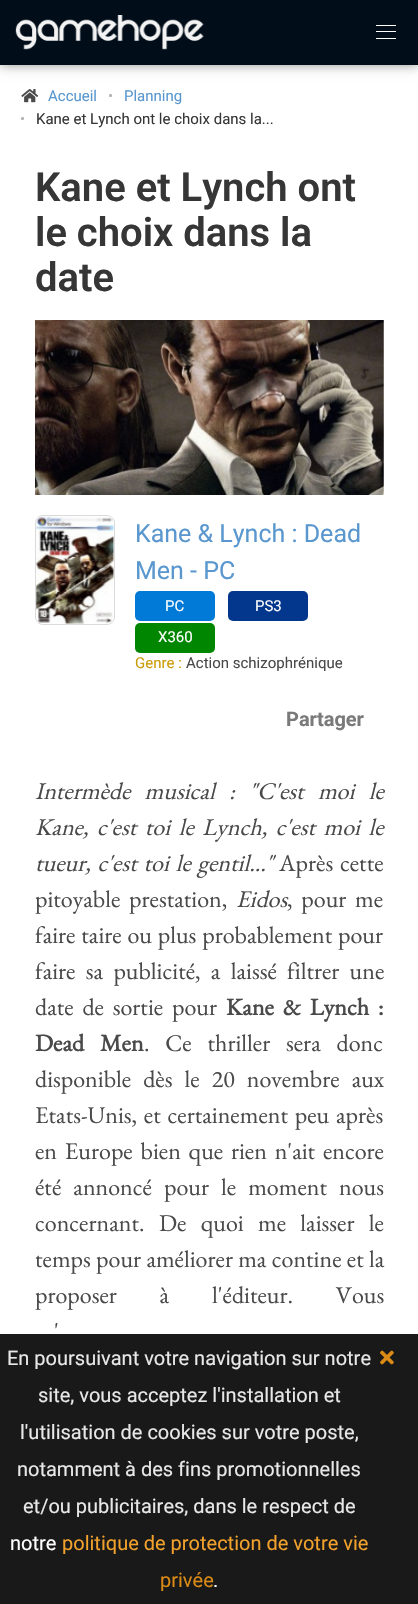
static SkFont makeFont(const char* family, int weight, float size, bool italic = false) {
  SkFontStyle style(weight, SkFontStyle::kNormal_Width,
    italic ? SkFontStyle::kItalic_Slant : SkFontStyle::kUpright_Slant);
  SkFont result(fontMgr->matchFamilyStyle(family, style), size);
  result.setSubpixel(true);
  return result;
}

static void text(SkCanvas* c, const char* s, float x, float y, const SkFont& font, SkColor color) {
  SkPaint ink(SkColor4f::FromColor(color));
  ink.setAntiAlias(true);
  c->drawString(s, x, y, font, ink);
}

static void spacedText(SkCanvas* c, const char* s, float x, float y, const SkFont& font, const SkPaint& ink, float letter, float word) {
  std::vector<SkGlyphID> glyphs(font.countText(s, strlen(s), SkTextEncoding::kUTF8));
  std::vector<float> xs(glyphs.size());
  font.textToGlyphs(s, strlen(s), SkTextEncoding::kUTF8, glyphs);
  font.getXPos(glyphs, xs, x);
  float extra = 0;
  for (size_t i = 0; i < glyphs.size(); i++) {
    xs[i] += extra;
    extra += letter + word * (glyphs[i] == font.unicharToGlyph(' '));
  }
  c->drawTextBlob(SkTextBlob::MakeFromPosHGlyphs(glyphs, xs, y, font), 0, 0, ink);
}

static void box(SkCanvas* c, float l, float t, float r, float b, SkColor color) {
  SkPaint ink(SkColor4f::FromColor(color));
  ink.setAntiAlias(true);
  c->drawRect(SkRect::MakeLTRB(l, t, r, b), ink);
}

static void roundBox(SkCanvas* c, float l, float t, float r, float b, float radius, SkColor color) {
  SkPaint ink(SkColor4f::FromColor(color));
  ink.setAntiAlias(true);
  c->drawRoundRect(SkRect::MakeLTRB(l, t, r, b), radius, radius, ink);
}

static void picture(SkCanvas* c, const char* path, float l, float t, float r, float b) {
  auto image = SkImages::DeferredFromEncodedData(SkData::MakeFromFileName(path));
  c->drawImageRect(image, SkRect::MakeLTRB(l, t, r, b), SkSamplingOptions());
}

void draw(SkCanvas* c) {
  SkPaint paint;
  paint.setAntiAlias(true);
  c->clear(0xffffffff);
  paint.setColor(0x80000000);
  paint.setMaskFilter(SkMaskFilter::MakeBlur(kNormal_SkBlurStyle, 6));
  c->drawRect(SkRect::MakeLTRB(0, -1, 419, 64), paint);
  paint.setMaskFilter(nullptr);
  box(c, 0, 0, 418, 65, 0xff010e1a);
  picture(c, "img_01.png", 15, 15, 204, 50);
  box(c, 376, 25, 396, 26, 0xffffffff);
  box(c, 376, 31, 396, 32, 0xffffffff);
  box(c, 376, 38, 396, 39, 0xffffffff);
  picture(c, "img_02.png", 21, 89, 39, 103);
  SkFont face1 = makeFont("Roboto", 400, 15);
  text(c, "Accueil", 48, 101, face1, 0xff5997ce);
  text(c, "•", 108, 101, face1, 0xffb5b5b5);
  text(c, "Planning", 124, 101, face1, 0xff5997ce);
  text(c, "•", 20, 124, face1, 0xffb5b5b5);
  text(c, "Kane et Lynch ont le choix dans la...", 36, 124, face1, 0xff363636);
  SkFont face2 = makeFont("Roboto", 600, 40);
  text(c, "Kane et Lynch ont", 35, 201, face2, 0xff363636);
  text(c, "le choix dans la", 35, 246, face2, 0xff363636);
  text(c, "date", 35, 291, face2, 0xff363636);
  picture(c, "img_03.png", 35, 320, 384, 495);
  paint.setStyle(SkPaint::kStroke_Style);
  paint.setStrokeWidth(1);
  paint.setColor(0xffdbdbdb);
  c->drawRoundRect(SkRect::MakeLTRB(35.5f, 515.5f, 114.5f, 624.5f), 7.5f, 7.5f, paint);
  picture(c, "img_04.png", 36, 516, 114, 624);
  SkFont face3 = makeFont("Roboto", 400, 25);
  text(c, "Kane & Lynch : Dead", 135, 542, face3, 0xff5997ce);
  text(c, "Men - PC", 135, 579, face3, 0xff5997ce);
  roundBox(c, 135, 591, 215, 621, 5, 0xff0079d7);
  text(c, "PC", 165, 611, face1, 0xffffffff);
  roundBox(c, 228, 591, 308, 621, 5, 0xff02378d);
  text(c, "PS3", 255, 611, face1, 0xffffffff);
  roundBox(c, 135, 623, 215, 653, 5, 0xff008600);
  text(c, "X360", 158, 642, face1, 0xffffffff);
  text(c, "Genre :", 135, 668, face1, 0xffca9c09);
  text(c, "Action schizophrénique", 186, 668, face1, 0xff4a4a4a);
  SkFont face4 = makeFont("Roboto", 700, 20);
  text(c, "Partager", 286, 726, face4, 0xff7a7a7a);
  SkFont face5 = makeFont("EB Garamond", 400, 24, true);
  paint.setStyle(SkPaint::kFill_Style);
  paint.setColor(0xff4a4a4a);
  spacedText(c, "Intermède musical : \"C'est moi le", 35, 799, face5, paint, 0, 9.5f);
  spacedText(c, "Kane, c'est toi le Lynch, c'est moi le", 35, 835, face5, paint, 0, 3.75f);
  spacedText(c, "tueur, c'est toi le gentil...\"", 35, 871, face5, paint, 0, 2);
  SkFont face6 = makeFont("EB Garamond", 400, 24);
  spacedText(c, "Après cette", 279, 871, face6, paint, 0, 2);
  spacedText(c, "pitoyable prestation,", 35, 907, face6, paint, 0, 4);
  text(c, "Eidos", 236, 907, face5, 0xff4a4a4a);
  spacedText(c, ", pour me", 287, 907, face6, paint, 0, 4);
  spacedText(c, "faire taire ou plus probablement pour", 35, 943, face6, paint, 0, 1);
  spacedText(c, "faire sa publicité, a laissé filtrer une", 35, 979, face6, paint, 0, 5.5f);
  spacedText(c, "date de sortie pour", 35, 1015, face6, paint, 0, 4);
  SkFont face7 = makeFont("EB Garamond", 700, 24);
  spacedText(c, "Kane & Lynch :", 226, 1015, face7, paint, 0, 4);
  spacedText(c, "Dead Men", 35, 1051, face7, paint, 0, 11);
  spacedText(c, ". Ce thriller sera donc", 144, 1051, face6, paint, 0, 11);
  spacedText(c, "disponible dès le 20 novembre aux", 35, 1087, face6, paint, 0, 7.25f);
  spacedText(c, "Etats-Unis, et certainement peu après", 35, 1123, face6, paint, 0, 2);
  spacedText(c, "en Europe bien que rien n'ait encore", 35, 1159, face6, paint, 0, 3);
  spacedText(c, "été annoncé pour le moment nous", 35, 1195, face6, paint, 0, 7.25f);
  text(c, "concernant.", 35, 1231, face6, 0xff4a4a4a);
  spacedText(c, "De quoi me laisser le", 159, 1231, face6, paint, 0, 9.5f);
  spacedText(c, "temps pour améliorer ma contine et la", 35, 1267, face6, paint, 0, 0.5f);
  spacedText(c, "proposer à l'éditeur. Vous", 35, 1303, face6, paint, 0, 38);
  spacedText(c, "'", 54, 1339, face6, paint, 0, 4);
  box(c, 0, 1334, 418, 1604, 0xe6000000);
  SkFont face8 = makeFont("Roboto", 400, 20);
  text(c, "En poursuivant votre navigation sur notre", 7, 1365, face8, 0xffe8e8e8);
  text(c, "site, vous acceptez l'installation et", 38, 1402, face8, 0xffe8e8e8);
  text(c, "l'utilisation de cookies sur votre poste,", 20, 1439, face8, 0xffe8e8e8);
  text(c, "notamment à des fins promotionnelles", 17, 1476, face8, 0xffe8e8e8);
  text(c, "et/ou publicitaires, dans le respect de", 23, 1513, face8, 0xffe8e8e8);
  text(c, "notre", 10, 1550, face8, 0xffffffff);
  text(c, "politique de protection de votre vie", 62, 1550, face8, 0xfff1a12c);
  text(c, "privée", 160, 1587, face8, 0xffda8a15);
  text(c, ".", 213, 1587, face8, 0xffffffff);
  picture(c, "img_05.png", 380, 1350, 394, 1365);
}
